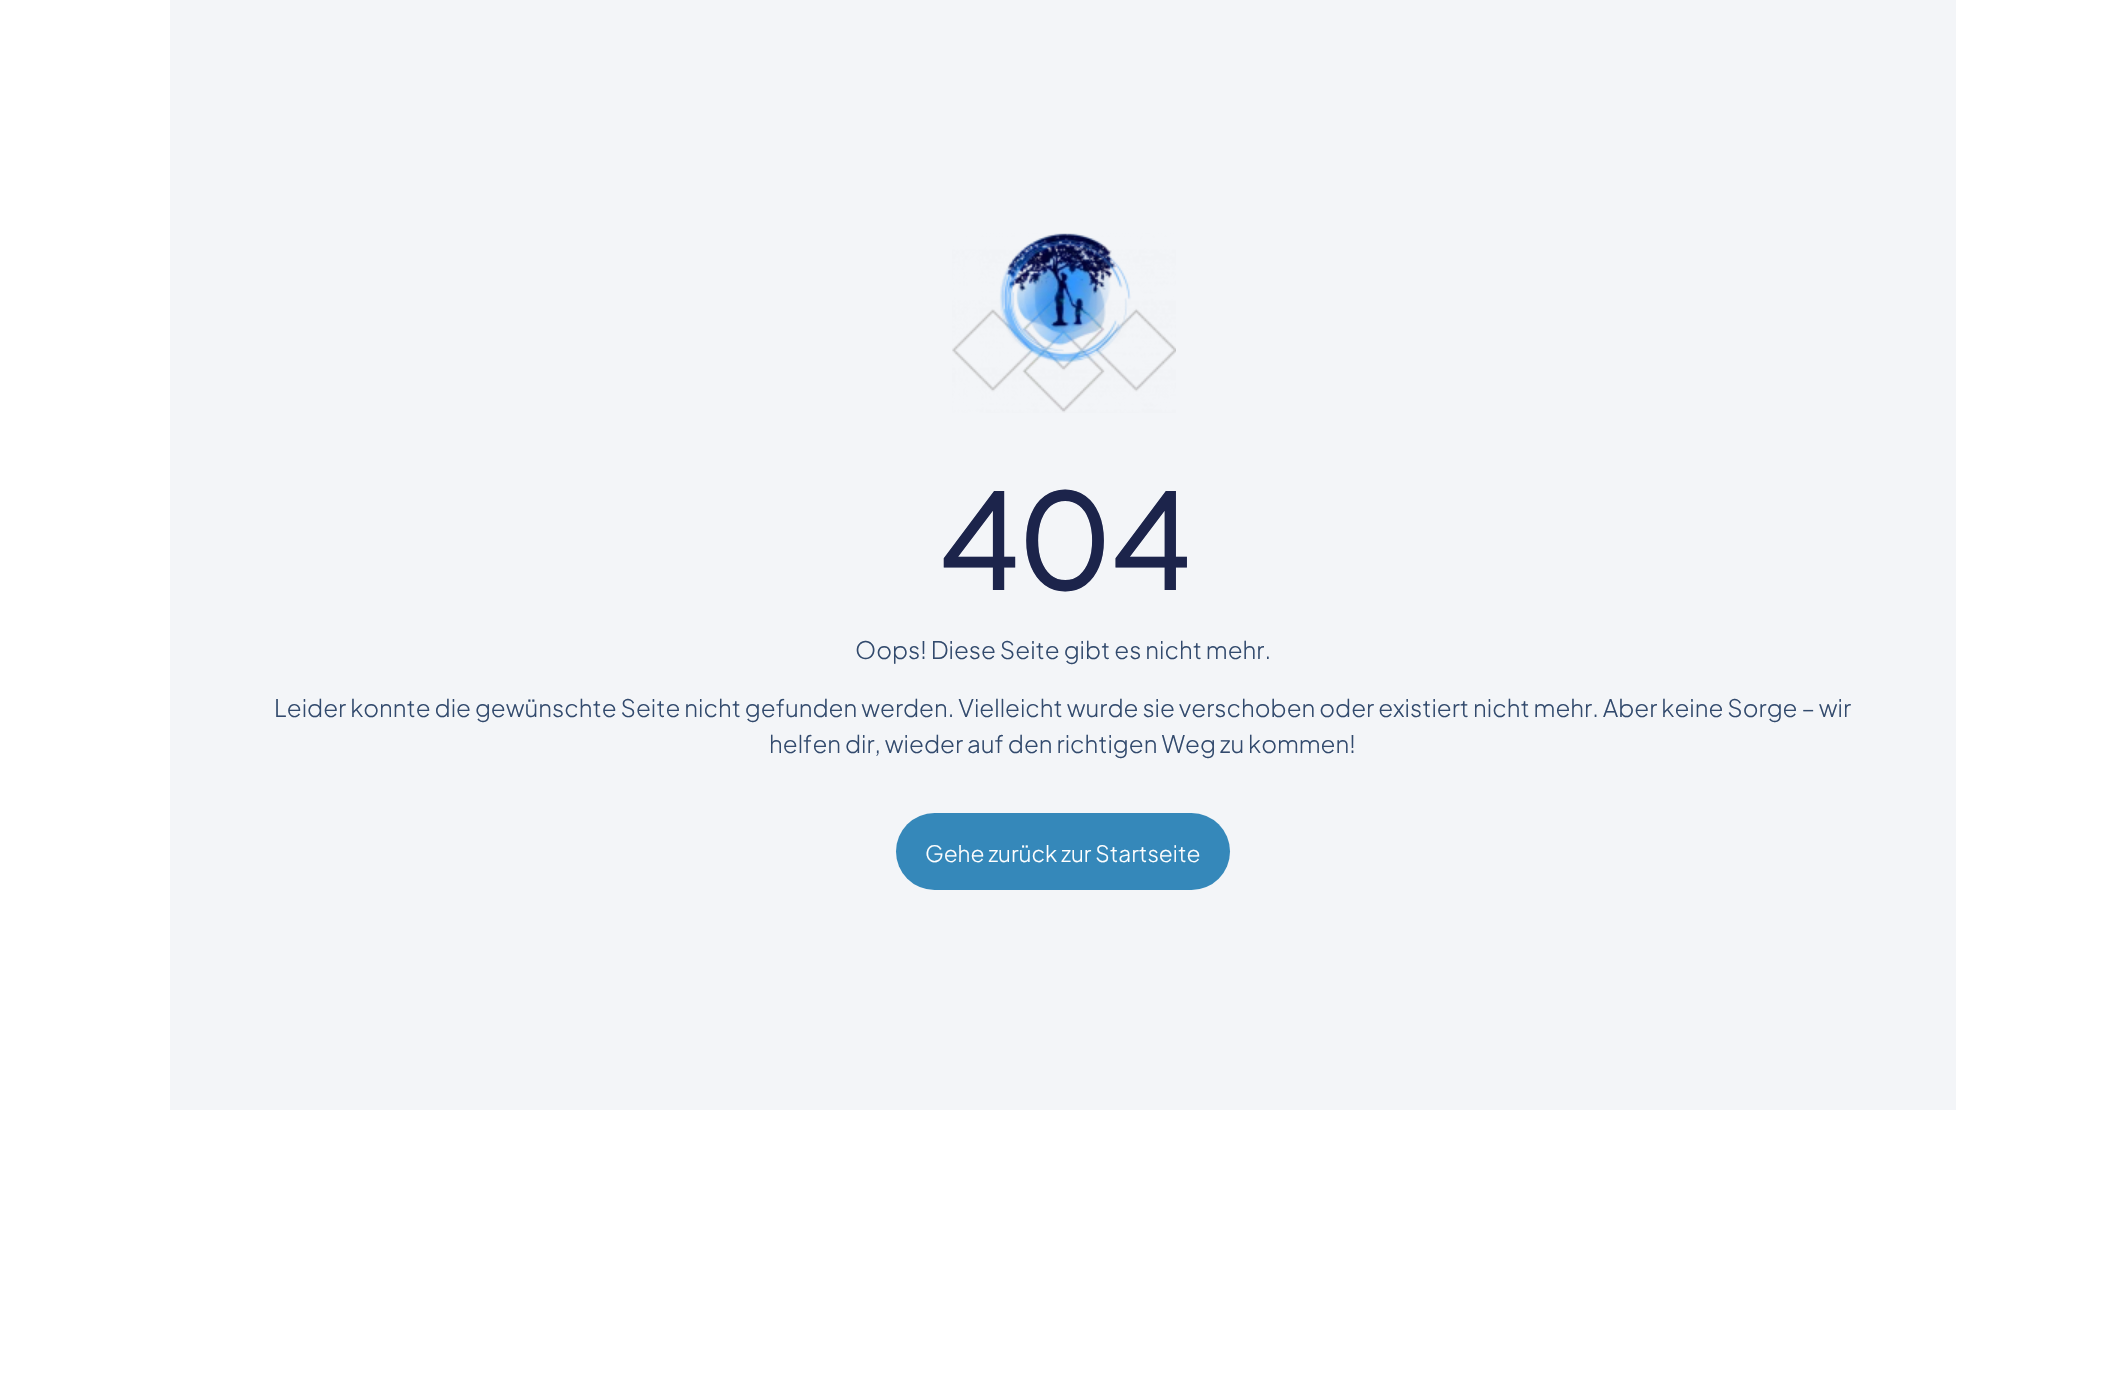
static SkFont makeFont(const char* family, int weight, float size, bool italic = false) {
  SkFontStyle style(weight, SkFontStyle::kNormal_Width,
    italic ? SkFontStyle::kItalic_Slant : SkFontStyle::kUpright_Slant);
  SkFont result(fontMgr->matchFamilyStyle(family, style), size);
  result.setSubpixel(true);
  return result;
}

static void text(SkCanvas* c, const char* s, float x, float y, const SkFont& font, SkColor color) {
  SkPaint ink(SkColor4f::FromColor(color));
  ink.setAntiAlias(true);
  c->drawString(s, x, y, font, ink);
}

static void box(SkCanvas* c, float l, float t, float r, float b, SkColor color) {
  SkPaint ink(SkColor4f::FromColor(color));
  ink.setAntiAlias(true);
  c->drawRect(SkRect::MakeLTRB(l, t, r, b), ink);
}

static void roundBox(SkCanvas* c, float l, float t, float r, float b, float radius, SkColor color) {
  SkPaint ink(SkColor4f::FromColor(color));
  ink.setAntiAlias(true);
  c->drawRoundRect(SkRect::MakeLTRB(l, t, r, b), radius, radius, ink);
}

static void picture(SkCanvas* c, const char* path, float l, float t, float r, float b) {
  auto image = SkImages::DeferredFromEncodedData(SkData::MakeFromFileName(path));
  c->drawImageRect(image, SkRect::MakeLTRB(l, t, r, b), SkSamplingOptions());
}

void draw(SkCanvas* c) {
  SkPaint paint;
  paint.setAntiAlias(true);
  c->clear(0xffffffff);
  box(c, 170, 0, 1956, 1110, 0xfff3f5f8);
  picture(c, "img_01.png", 952, 233, 1176, 413);
  SkFont face1 = makeFont("Plus Jakarta Sans", 700, 128);
  text(c, "404", 938, 590, face1, 0xff1c244b);
  SkFont face2 = makeFont("Plus Jakarta Sans", 300, 24);
  text(c, "Oops! Diese Seite gibt es nicht mehr.", 855, 659, face2, 0xff324a6d);
  text(c, "Leider konnte die gewünschte Seite nicht gefunden werden. Vielleicht wurde sie verschoben oder existiert nicht mehr. Aber keine Sorge – wir", 274, 717, face2, 0xff324a6d);
  text(c, "helfen dir, wieder auf den richtigen Weg zu kommen!", 769, 753, face2, 0xff324a6d);
  roundBox(c, 896, 813, 1230, 890, 38.5f, 0xff3588ba);
  SkFont face3 = makeFont("Plus Jakarta Sans", 300, 22.5f);
  text(c, "Gehe zurück zur Startseite", 925, 862, face3, 0xffffffff);
}
